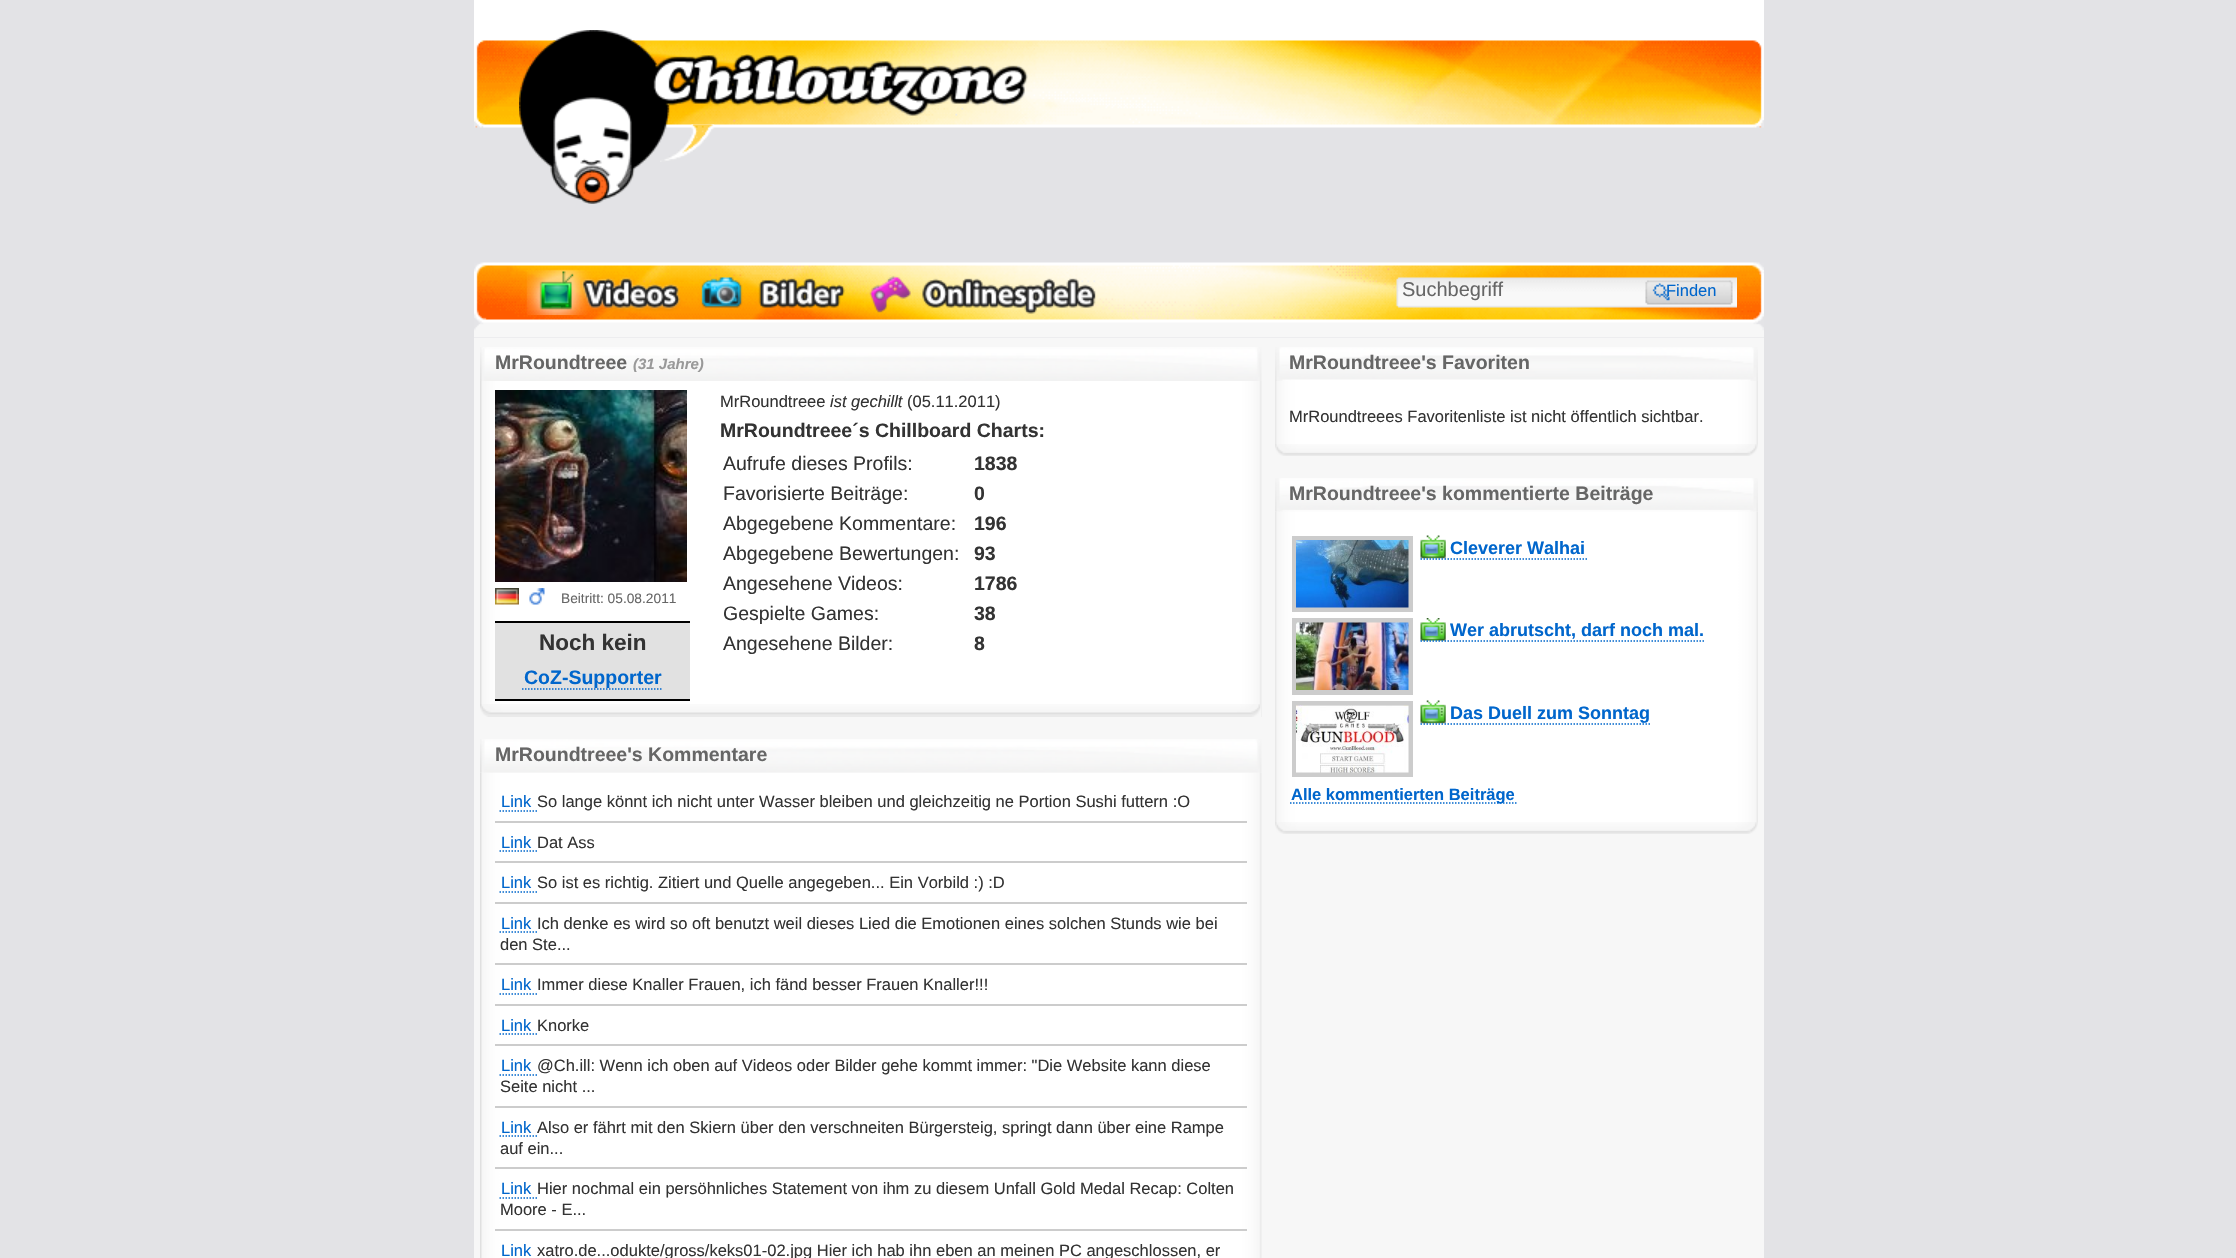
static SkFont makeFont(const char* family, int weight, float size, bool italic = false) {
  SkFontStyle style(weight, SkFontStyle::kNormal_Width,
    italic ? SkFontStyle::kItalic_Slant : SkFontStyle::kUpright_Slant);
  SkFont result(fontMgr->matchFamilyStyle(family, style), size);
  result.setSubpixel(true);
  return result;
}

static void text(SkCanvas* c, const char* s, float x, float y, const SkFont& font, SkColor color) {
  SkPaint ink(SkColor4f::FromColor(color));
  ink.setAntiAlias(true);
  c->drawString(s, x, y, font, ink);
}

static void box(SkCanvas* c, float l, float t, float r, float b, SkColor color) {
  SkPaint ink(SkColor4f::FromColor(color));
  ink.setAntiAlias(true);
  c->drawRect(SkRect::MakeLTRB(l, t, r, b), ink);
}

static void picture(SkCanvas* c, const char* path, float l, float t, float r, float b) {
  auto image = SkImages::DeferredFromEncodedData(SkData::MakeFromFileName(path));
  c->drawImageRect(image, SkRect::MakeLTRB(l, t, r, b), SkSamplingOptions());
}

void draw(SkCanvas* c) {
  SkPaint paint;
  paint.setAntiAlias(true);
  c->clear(0xffe3e3e6);
  picture(c, "img_01.png", 474, 0, 1764, 128);
  picture(c, "img_04.png", 660, 124, 715, 162);
  picture(c, "img_02.png", 519, 30, 670, 204);
  picture(c, "img_03.png", 653, 54, 1028, 116);
  picture(c, "img_05.png", 474, 262, 1764, 338);
  picture(c, "img_06.png", 526, 269, 681, 315);
  picture(c, "img_07.png", 701, 277, 743, 308);
  picture(c, "img_08.png", 758, 278, 845, 308);
  picture(c, "img_09.png", 869, 275, 911, 313);
  picture(c, "img_10.png", 922, 278, 1096, 314);
  picture(c, "img_11.png", 1396, 277, 1737, 308);
  SkFont face1 = makeFont("Liberation Sans", 400, 20);
  text(c, "Suchbegriff", 1402, 296, face1, 0xff666666);
  picture(c, "img_12.png", 1645, 280, 1733, 305);
  SkFont face2 = makeFont("Liberation Sans", 400, 16.5f);
  text(c, "Finden", 1666, 296, face2, 0xff0066cc);
  box(c, 474, 338, 1764, 1258, 0xfff7f7f7);
  picture(c, "img_13.png", 480, 347, 1262, 381);
  SkFont face3 = makeFont("Liberation Sans", 700, 19.5f);
  text(c, "MrRoundtreee", 495, 369, face3, 0xff666666);
  SkFont face4 = makeFont("Liberation Sans", 700, 15, true);
  text(c, "(31 Jahre)", 633, 369, face4, 0xff999999);
  picture(c, "img_14.png", 480, 381, 1262, 717);
  picture(c, "img_15.png", 480, 704, 1261, 717);
  picture(c, "img_16.png", 495, 390, 687, 582);
  picture(c, "img_17.png", 495, 588, 519, 605);
  picture(c, "img_18.png", 529, 588, 545, 605);
  SkFont face5 = makeFont("Liberation Sans", 400, 13.75f);
  text(c, "Beitritt: 05.08.2011", 561, 603, face5, 0xff666666);
  box(c, 495, 623, 690, 699, 0xffe1e1e1);
  box(c, 495, 621, 690, 623, 0xff000000);
  box(c, 495, 699, 690, 701, 0xff000000);
  SkFont face6 = makeFont("Liberation Sans", 700, 22.5f);
  text(c, "Noch kein", 539, 650, face6, 0xff333333);
  paint.setStyle(SkPaint::kStroke_Style);
  paint.setStrokeWidth(1.5f);
  paint.setColor(0xff0066cc);
  paint.setPathEffect(SkDashPathEffect::Make({{1.5f, 1.5f}}, 0));
  c->drawPath(SkPathBuilder().moveTo(522, 689).lineTo(663, 689).detach(), paint);
  paint.setPathEffect(nullptr);
  text(c, "CoZ-Supporter", 524, 684, face3, 0xff0066cc);
  text(c, "MrRoundtreee", 720, 407, face2, 0xff333333);
  SkFont face7 = makeFont("Liberation Sans", 400, 16.5f, true);
  text(c, "ist gechillt", 830, 407, face7, 0xff333333);
  text(c, "(05.11.2011)", 907, 407, face2, 0xff333333);
  text(c, "MrRoundtreee´s Chillboard Charts:", 720, 437, face3, 0xff333333);
  SkFont face8 = makeFont("Liberation Sans", 400, 19.5f);
  text(c, "Aufrufe dieses Profils:", 723, 470, face8, 0xff333333);
  text(c, "1838", 974, 470, face3, 0xff333333);
  text(c, "Favorisierte Beiträge:", 723, 500, face8, 0xff333333);
  text(c, "0", 974, 500, face3, 0xff333333);
  text(c, "Abgegebene Kommentare:", 723, 530, face8, 0xff333333);
  text(c, "196", 974, 530, face3, 0xff333333);
  text(c, "Abgegebene Bewertungen:", 723, 560, face8, 0xff333333);
  text(c, "93", 974, 560, face3, 0xff333333);
  text(c, "Angesehene Videos:", 723, 590, face8, 0xff333333);
  text(c, "1786", 974, 590, face3, 0xff333333);
  text(c, "Gespielte Games:", 723, 620, face8, 0xff333333);
  text(c, "38", 974, 620, face3, 0xff333333);
  text(c, "Angesehene Bilder:", 723, 650, face8, 0xff333333);
  text(c, "8", 974, 650, face3, 0xff333333);
  picture(c, "img_20.png", 480, 772, 1262, 1258);
  picture(c, "img_19.png", 480, 739, 1262, 773);
  text(c, "MrRoundtreee's Kommentare", 495, 761, face3, 0xff666666);
  box(c, 495, 821, 1247, 823, 0xffcccccc);
  text(c, "Link", 501, 807, face2, 0xff0066cc);
  paint.setPathEffect(SkDashPathEffect::Make({{1.5f, 1.5f}}, 0));
  c->drawPath(SkPathBuilder().moveTo(499.5f, 811).lineTo(537, 811).detach(), paint);
  paint.setPathEffect(nullptr);
  text(c, "So lange könnt ich nicht unter Wasser bleiben und gleichzeitig ne Portion Sushi futtern :O", 537, 807, face2, 0xff333333);
  box(c, 495, 861, 1247, 863, 0xffcccccc);
  text(c, "Link", 501, 848, face2, 0xff0066cc);
  paint.setPathEffect(SkDashPathEffect::Make({{1.5f, 1.5f}}, 0));
  c->drawPath(SkPathBuilder().moveTo(499.5f, 851).lineTo(537, 851).detach(), paint);
  paint.setPathEffect(nullptr);
  text(c, "Dat Ass", 537, 848, face2, 0xff333333);
  box(c, 495, 902, 1247, 904, 0xffcccccc);
  text(c, "Link", 501, 888, face2, 0xff0066cc);
  paint.setPathEffect(SkDashPathEffect::Make({{1.5f, 1.5f}}, 0));
  c->drawPath(SkPathBuilder().moveTo(499.5f, 892).lineTo(537, 892).detach(), paint);
  paint.setPathEffect(nullptr);
  text(c, "So ist es richtig. Zitiert und Quelle angegeben... Ein Vorbild :) :D", 537, 888, face2, 0xff333333);
  box(c, 495, 963, 1247, 965, 0xffcccccc);
  text(c, "Link", 501, 929, face2, 0xff0066cc);
  paint.setPathEffect(SkDashPathEffect::Make({{1.5f, 1.5f}}, 0));
  c->drawPath(SkPathBuilder().moveTo(499.5f, 932).lineTo(537, 932).detach(), paint);
  paint.setPathEffect(nullptr);
  text(c, "Ich denke es wird so oft benutzt weil dieses Lied die Emotionen eines solchen Stunds wie bei", 537, 929, face2, 0xff333333);
  text(c, "den Ste...", 500, 950, face2, 0xff333333);
  box(c, 495, 1004, 1247, 1006, 0xffcccccc);
  text(c, "Link", 501, 990, face2, 0xff0066cc);
  paint.setPathEffect(SkDashPathEffect::Make({{1.5f, 1.5f}}, 0));
  c->drawPath(SkPathBuilder().moveTo(499.5f, 994).lineTo(537, 994).detach(), paint);
  paint.setPathEffect(nullptr);
  text(c, "Immer diese Knaller Frauen, ich fänd besser Frauen Knaller!!!", 537, 990, face2, 0xff333333);
  box(c, 495, 1044, 1247, 1046, 0xffcccccc);
  text(c, "Link", 501, 1031, face2, 0xff0066cc);
  paint.setPathEffect(SkDashPathEffect::Make({{1.5f, 1.5f}}, 0));
  c->drawPath(SkPathBuilder().moveTo(499.5f, 1034).lineTo(537, 1034).detach(), paint);
  paint.setPathEffect(nullptr);
  text(c, "Knorke", 537, 1031, face2, 0xff333333);
  box(c, 495, 1106, 1247, 1108, 0xffcccccc);
  text(c, "Link", 501, 1071, face2, 0xff0066cc);
  paint.setPathEffect(SkDashPathEffect::Make({{1.5f, 1.5f}}, 0));
  c->drawPath(SkPathBuilder().moveTo(499.5f, 1075).lineTo(537, 1075).detach(), paint);
  paint.setPathEffect(nullptr);
  text(c, "@Ch.ill: Wenn ich oben auf Videos oder Bilder gehe kommt immer: \"Die Website kann diese", 537, 1071, face2, 0xff333333);
  text(c, "Seite nicht ...", 500, 1092, face2, 0xff333333);
  box(c, 495, 1167, 1247, 1169, 0xffcccccc);
  text(c, "Link", 501, 1133, face2, 0xff0066cc);
  paint.setPathEffect(SkDashPathEffect::Make({{1.5f, 1.5f}}, 0));
  c->drawPath(SkPathBuilder().moveTo(499.5f, 1136).lineTo(537, 1136).detach(), paint);
  paint.setPathEffect(nullptr);
  text(c, "Also er fährt mit den Skiern über den verschneiten Bürgersteig, springt dann über eine Rampe", 537, 1133, face2, 0xff333333);
  text(c, "auf ein...", 500, 1154, face2, 0xff333333);
  box(c, 495, 1229, 1247, 1231, 0xffcccccc);
  text(c, "Link", 501, 1194, face2, 0xff0066cc);
  paint.setPathEffect(SkDashPathEffect::Make({{1.5f, 1.5f}}, 0));
  c->drawPath(SkPathBuilder().moveTo(499.5f, 1198).lineTo(537, 1198).detach(), paint);
  paint.setPathEffect(nullptr);
  text(c, "Hier nochmal ein persöhnliches Statement von ihm zu diesem Unfall Gold Medal Recap: Colten", 537, 1194, face2, 0xff333333);
  text(c, "Moore - E...", 500, 1215, face2, 0xff333333);
  text(c, "Link", 501, 1256, face2, 0xff0066cc);
  text(c, "xatro.de...odukte/gross/keks01-02.jpg Hier ich hab ihn eben an meinen PC angeschlossen, er", 537, 1256, face2, 0xff333333);
  picture(c, "img_21.png", 1275, 347, 1758, 381);
  text(c, "MrRoundtreee's Favoriten", 1289, 369, face3, 0xff666666);
  picture(c, "img_22.png", 1275, 381, 1758, 444);
  picture(c, "img_23.png", 1275, 444, 1758, 456);
  text(c, "MrRoundtreees Favoritenliste ist nicht öffentlich sichtbar.", 1289, 422, face2, 0xff333333);
  picture(c, "img_25.png", 1275, 511, 1758, 822);
  picture(c, "img_24.png", 1275, 478, 1758, 512);
  text(c, "MrRoundtreee's kommentierte Beiträge", 1289, 500, face3, 0xff666666);
  picture(c, "img_23.png", 1275, 822, 1758, 834);
  paint.setStrokeWidth(5);
  paint.setColor(0xffcccccc);
  c->drawRect(SkRect::MakeLTRB(1294.5f, 538.5f, 1410.5f, 609.5f), paint);
  picture(c, "img_26.png", 1296, 540, 1409, 608);
  picture(c, "img_27.png", 1420, 535, 1446, 559);
  SkFont face9 = makeFont("Liberation Sans", 700, 18);
  text(c, "Cleverer Walhai", 1450, 554, face9, 0xff0066cc);
  paint.setStrokeWidth(1.5f);
  paint.setColor(0xff0066cc);
  paint.setPathEffect(SkDashPathEffect::Make({{1.5f, 1.5f}}, 0));
  c->drawPath(SkPathBuilder().moveTo(1420.5f, 559).lineTo(1587, 559).detach(), paint);
  paint.setPathEffect(nullptr);
  paint.setStrokeWidth(5);
  paint.setColor(0xffcccccc);
  c->drawRect(SkRect::MakeLTRB(1294.5f, 620.5f, 1410.5f, 692.5f), paint);
  picture(c, "img_28.png", 1296, 622, 1409, 690);
  picture(c, "img_29.png", 1420, 618, 1446, 641);
  text(c, "Wer abrutscht, darf noch mal.", 1450, 636, face9, 0xff0066cc);
  paint.setStrokeWidth(1.5f);
  paint.setColor(0xff0066cc);
  paint.setPathEffect(SkDashPathEffect::Make({{1.5f, 1.5f}}, 0));
  c->drawPath(SkPathBuilder().moveTo(1420.5f, 641).lineTo(1705.5f, 641).detach(), paint);
  paint.setPathEffect(nullptr);
  paint.setStrokeWidth(5);
  paint.setColor(0xffcccccc);
  c->drawRect(SkRect::MakeLTRB(1294.5f, 703.5f, 1410.5f, 774.5f), paint);
  picture(c, "img_30.png", 1296, 705, 1409, 773);
  picture(c, "img_27.png", 1420, 700, 1446, 724);
  text(c, "Das Duell zum Sonntag", 1450, 719, face9, 0xff0066cc);
  paint.setStrokeWidth(1.5f);
  paint.setColor(0xff0066cc);
  paint.setPathEffect(SkDashPathEffect::Make({{1.5f, 1.5f}}, 0));
  c->drawPath(SkPathBuilder().moveTo(1420.5f, 724).lineTo(1651.5f, 724).detach(), paint);
  paint.setPathEffect(nullptr);
  paint.setPathEffect(SkDashPathEffect::Make({{1.5f, 1.5f}}, 0));
  c->drawPath(SkPathBuilder().moveTo(1290, 803).lineTo(1516.5f, 803).detach(), paint);
  paint.setPathEffect(nullptr);
  SkFont face10 = makeFont("Liberation Sans", 700, 16.5f);
  text(c, "Alle kommentierten Beiträge", 1291, 800, face10, 0xff0066cc);
}
